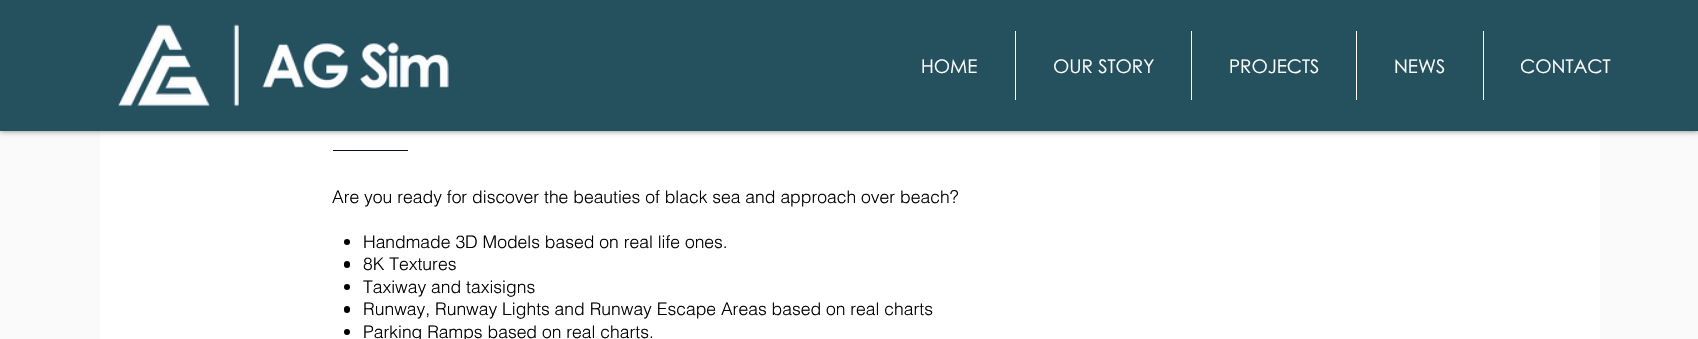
static SkFont makeFont(const char* family, int weight, float size, bool italic = false) {
  SkFontStyle style(weight, SkFontStyle::kNormal_Width,
    italic ? SkFontStyle::kItalic_Slant : SkFontStyle::kUpright_Slant);
  SkFont result(fontMgr->matchFamilyStyle(family, style), size);
  result.setSubpixel(true);
  return result;
}

static void text(SkCanvas* c, const char* s, float x, float y, const SkFont& font, SkColor color) {
  SkPaint ink(SkColor4f::FromColor(color));
  ink.setAntiAlias(true);
  c->drawString(s, x, y, font, ink);
}

static void box(SkCanvas* c, float l, float t, float r, float b, SkColor color) {
  SkPaint ink(SkColor4f::FromColor(color));
  ink.setAntiAlias(true);
  c->drawRect(SkRect::MakeLTRB(l, t, r, b), ink);
}

static void roundBox(SkCanvas* c, float l, float t, float r, float b, float radius, SkColor color) {
  SkPaint ink(SkColor4f::FromColor(color));
  ink.setAntiAlias(true);
  c->drawRoundRect(SkRect::MakeLTRB(l, t, r, b), radius, radius, ink);
}

static void picture(SkCanvas* c, const char* path, float l, float t, float r, float b) {
  auto image = SkImages::DeferredFromEncodedData(SkData::MakeFromFileName(path));
  c->drawImageRect(image, SkRect::MakeLTRB(l, t, r, b), SkSamplingOptions());
}

void draw(SkCanvas* c) {
  SkPaint paint;
  paint.setAntiAlias(true);
  c->clear(0xfffafafa);
  box(c, 100, 131, 1600, 339, 0xffffffff);
  paint.setColor(0x80000000);
  paint.setMaskFilter(SkMaskFilter::MakeBlur(kNormal_SkBlurStyle, 3));
  c->drawRect(SkRect::MakeLTRB(0, 0, 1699, 131), paint);
  paint.setMaskFilter(nullptr);
  box(c, 0, 0, 1698, 131, 0xff25515f);
  picture(c, "img_01.png", 117, 24, 450, 107);
  SkFont face1 = makeFont("Century Gothic", 400, 18.75f);
  text(c, "HOME", 921, 73, face1, 0xffffffff);
  box(c, 1015, 31, 1016, 100, 0xffffffff);
  text(c, "OUR STORY", 1053, 73, face1, 0xffffffff);
  box(c, 1191, 31, 1192, 100, 0xffffffff);
  text(c, "PROJECTS", 1229, 73, face1, 0xffffffff);
  box(c, 1356, 31, 1357, 100, 0xffffffff);
  text(c, "NEWS", 1394, 73, face1, 0xffffffff);
  box(c, 1483, 31, 1484, 100, 0xffffffff);
  text(c, "CONTACT", 1520, 73, face1, 0xffffffff);
  box(c, 333, 150, 408, 151, 0xff060e25);
  SkFont face2 = makeFont("helvetica", 300, 17.5f);
  text(c, "Are you ready for discover the beauties of black sea and approach over beach?", 332, 203, face2, 0xff000000);
  paint.setColor(0xff000000);
  c->drawCircle(347, 242, 3, paint);
  text(c, "Handmade 3D Models based on real life ones.", 363, 248, face2, 0xff000000);
  roundBox(c, 344, 261, 350, 268, 3, 0xff000000);
  text(c, "8K Textures", 363, 270, face2, 0xff000000);
  c->drawCircle(347, 287, 3, paint);
  text(c, "Taxiway and taxisigns", 363, 293, face2, 0xff000000);
  roundBox(c, 344, 306, 350, 313, 3, 0xff000000);
  text(c, "Runway, Runway Lights and Runway Escape Areas based on real charts", 363, 315, face2, 0xff000000);
  c->drawCircle(347, 332, 3, paint);
  text(c, "Parking Ramps based on real charts.", 363, 338, face2, 0xff000000);
}
